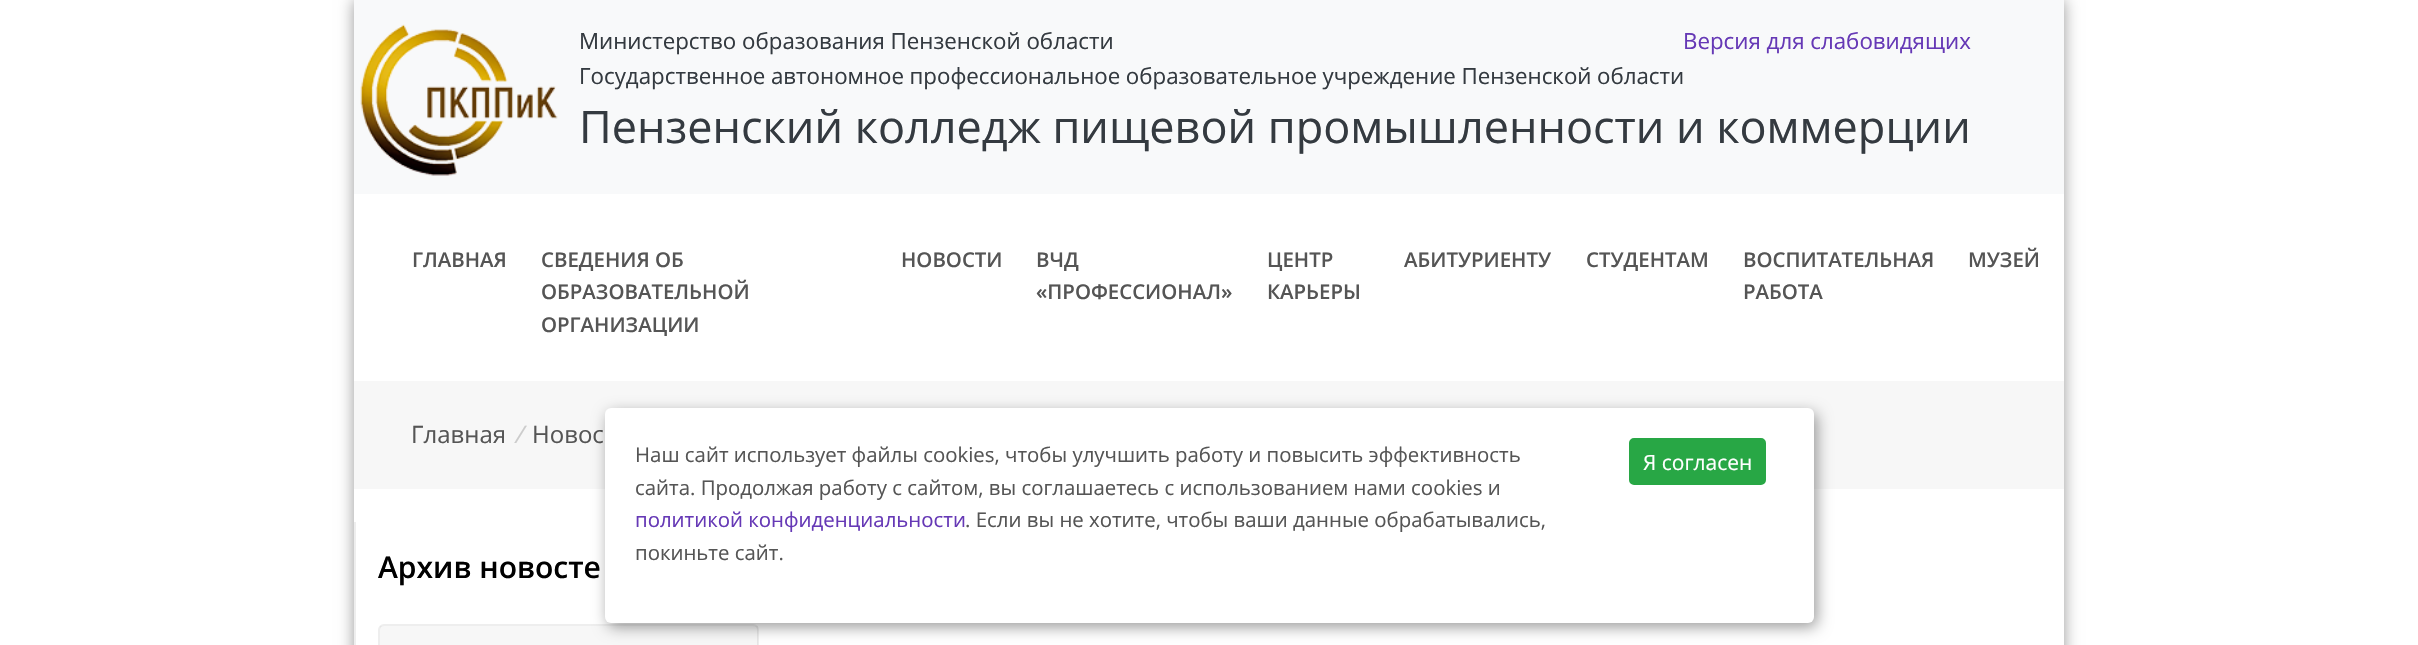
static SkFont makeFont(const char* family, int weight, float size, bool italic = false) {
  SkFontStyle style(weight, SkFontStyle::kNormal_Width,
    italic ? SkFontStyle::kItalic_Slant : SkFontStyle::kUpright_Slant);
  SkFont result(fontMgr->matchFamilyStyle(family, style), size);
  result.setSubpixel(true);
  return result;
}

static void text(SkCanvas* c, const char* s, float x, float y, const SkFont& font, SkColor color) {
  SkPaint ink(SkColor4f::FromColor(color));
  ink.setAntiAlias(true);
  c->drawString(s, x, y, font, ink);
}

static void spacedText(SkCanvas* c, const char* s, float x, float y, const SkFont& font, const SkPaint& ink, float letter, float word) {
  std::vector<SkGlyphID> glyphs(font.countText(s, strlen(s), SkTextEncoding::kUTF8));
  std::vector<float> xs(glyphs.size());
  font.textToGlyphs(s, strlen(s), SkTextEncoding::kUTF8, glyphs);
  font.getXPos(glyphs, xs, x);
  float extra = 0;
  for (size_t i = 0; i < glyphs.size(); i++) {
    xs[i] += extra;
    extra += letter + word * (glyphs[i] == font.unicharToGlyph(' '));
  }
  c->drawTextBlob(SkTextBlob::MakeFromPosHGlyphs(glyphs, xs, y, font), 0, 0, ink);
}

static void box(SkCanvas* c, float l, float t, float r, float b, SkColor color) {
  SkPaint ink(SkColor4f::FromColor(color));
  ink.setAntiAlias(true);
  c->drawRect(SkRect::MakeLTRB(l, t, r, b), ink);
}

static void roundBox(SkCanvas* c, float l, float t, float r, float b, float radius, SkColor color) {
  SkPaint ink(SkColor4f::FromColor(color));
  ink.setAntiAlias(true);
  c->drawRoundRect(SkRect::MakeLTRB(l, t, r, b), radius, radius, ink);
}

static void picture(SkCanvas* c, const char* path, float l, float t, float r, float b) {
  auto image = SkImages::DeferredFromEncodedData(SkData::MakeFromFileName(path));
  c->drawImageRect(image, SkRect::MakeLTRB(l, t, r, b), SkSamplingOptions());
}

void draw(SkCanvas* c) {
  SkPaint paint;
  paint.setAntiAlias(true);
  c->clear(0xffffffff);
  c->save();
  c->clipPath(SkPathBuilder(SkPathFillType::kEvenOdd).moveTo(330, 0).lineTo(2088, 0).lineTo(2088, 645).lineTo(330, 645).close().moveTo(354, 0).lineTo(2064, 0).lineTo(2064, 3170).lineTo(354, 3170).close().detach(), true);
  paint.setColor(0xff999999);
  paint.setMaskFilter(SkMaskFilter::MakeBlur(kNormal_SkBlurStyle, 7.5f));
  c->drawRect(SkRect::MakeLTRB(354, 0, 2064, 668), paint);
  paint.setMaskFilter(nullptr);
  c->restore();
  box(c, 354, 0, 2064, 194, 0xfff8f9fa);
  picture(c, "img_01.png", 360, 24, 558, 176);
  SkFont face1 = makeFont("Open Sans", 400, 22.3f);
  text(c, "Министерство образования Пензенской области", 579, 49, face1, 0xff343a40);
  text(c, "Версия для слабовидящих", 1683, 49, face1, 0xff6639b6);
  paint.setColor(0xff343a40);
  spacedText(c, "Государственное автономное профессиональное образовательное учреждение Пензенской области", 579, 84, face1, paint, 0, -0.25f);
  SkFont face2 = makeFont("Open Sans", 400, 45);
  text(c, "Пензенский колледж пищевой промышленности и коммерции", 579, 143, face2, 0xff343a40);
  SkFont face3 = makeFont("Open Sans", 600, 20.4f);
  text(c, "ГЛАВНАЯ", 412, 267, face3, 0xff555555);
  text(c, "СВЕДЕНИЯ ОБ", 541, 267, face3, 0xff555555);
  text(c, "ОБРАЗОВАТЕЛЬНОЙ", 541, 299, face3, 0xff555555);
  text(c, "ОРГАНИЗАЦИИ", 541, 332, face3, 0xff555555);
  text(c, "НОВОСТИ", 901, 267, face3, 0xff555555);
  text(c, "ВЧД", 1036, 267, face3, 0xff555555);
  text(c, "«ПРОФЕССИОНАЛ»", 1036, 299, face3, 0xff555555);
  text(c, "ЦЕНТР", 1267, 267, face3, 0xff555555);
  text(c, "КАРЬЕРЫ", 1267, 299, face3, 0xff555555);
  text(c, "АБИТУРИЕНТУ", 1404, 267, face3, 0xff555555);
  text(c, "СТУДЕНТАМ", 1586, 267, face3, 0xff555555);
  text(c, "ВОСПИТАТЕЛЬНАЯ", 1743, 267, face3, 0xff555555);
  text(c, "РАБОТА", 1743, 299, face3, 0xff555555);
  text(c, "МУЗЕЙ", 1968, 267, face3, 0xff555555);
  box(c, 354, 381, 2064, 489, 0xfff7f7f7);
  SkFont face4 = makeFont("Open Sans", 400, 24);
  text(c, "Главная", 411, 443, face4, 0xff555555);
  SkFont face5 = makeFont("Open Sans", 400, 24, true);
  text(c, "/", 514, 443, face5, 0xffcccccc);
  text(c, "Новос", 532, 443, face4, 0xff555555);
  box(c, 354, 522, 356, 645, 0xffeeeeee);
  SkFont face6 = makeFont("Open Sans", 600, 30);
  text(c, "Архив новосте", 378, 578, face6, 0xff000000);
  paint.setStyle(SkPaint::kStroke_Style);
  paint.setStrokeWidth(2);
  paint.setColor(0xffeeeeee);
  c->drawRoundRect(SkRect::MakeLTRB(379, 625, 758, 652), 5, 5, paint);
  box(c, 380, 626, 758, 645, 0x08000000);
  paint.setStyle(SkPaint::kFill_Style);
  paint.setColor(0x66000000);
  paint.setMaskFilter(SkMaskFilter::MakeBlur(kNormal_SkBlurStyle, 7.5f));
  c->drawRoundRect(SkRect::MakeLTRB(608, 413, 1817, 627), 6, 6, paint);
  paint.setMaskFilter(nullptr);
  roundBox(c, 605, 408, 1814, 623, 6, 0xffffffff);
  SkFont face7 = makeFont("Open Sans", 400, 20.4f);
  text(c, "Наш сайт использует файлы cookies, чтобы улучшить работу и повысить эффективность", 635, 462, face7, 0xff555555);
  text(c, "сайта. Продолжая работу с сайтом, вы соглашаетесь с использованием нами cookies и", 635, 495, face7, 0xff555555);
  text(c, "политикой конфиденциальности", 635, 527, face7, 0xff6639b6);
  text(c, ". Если вы не хотите, чтобы ваши данные обрабатывались,", 965, 527, face7, 0xff555555);
  text(c, "покиньте сайт.", 635, 560, face7, 0xff555555);
  paint.setColor(0xff28a745);
  c->drawRoundRect(SkRect::MakeLTRB(1630, 439, 1765, 484), 4, 4, paint);
  paint.setStyle(SkPaint::kStroke_Style);
  c->drawRoundRect(SkRect::MakeLTRB(1630, 439, 1765, 484), 4, 4, paint);
  SkFont face8 = makeFont("Open Sans", 400, 21);
  text(c, "Я согласен", 1643, 470, face8, 0xffffffff);
}
